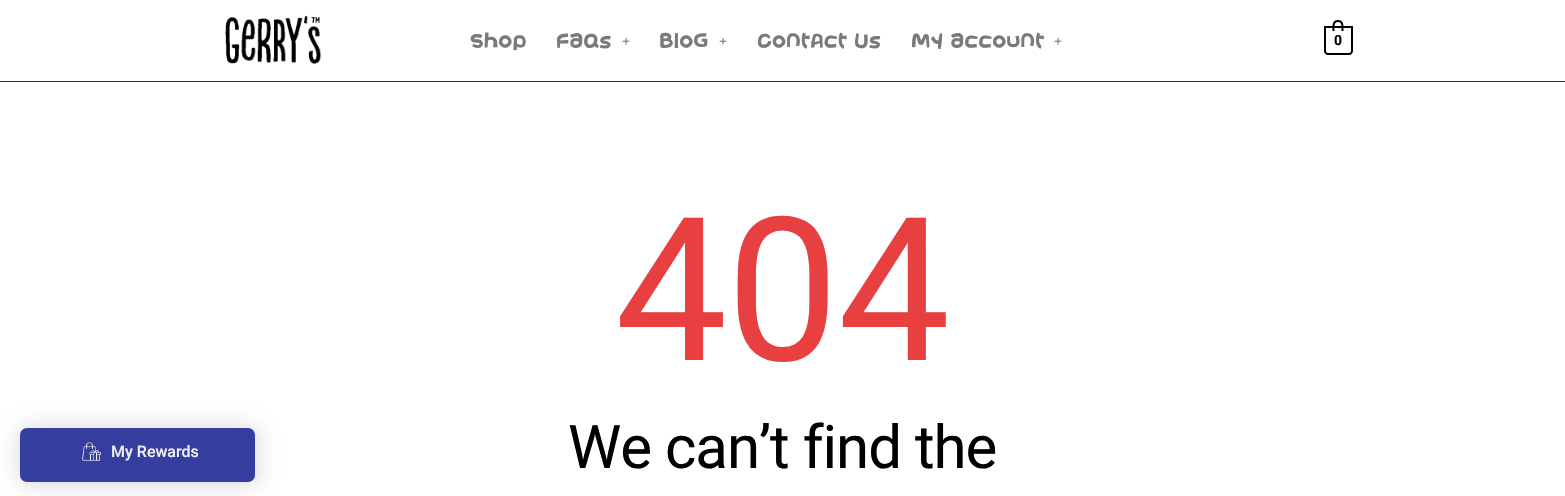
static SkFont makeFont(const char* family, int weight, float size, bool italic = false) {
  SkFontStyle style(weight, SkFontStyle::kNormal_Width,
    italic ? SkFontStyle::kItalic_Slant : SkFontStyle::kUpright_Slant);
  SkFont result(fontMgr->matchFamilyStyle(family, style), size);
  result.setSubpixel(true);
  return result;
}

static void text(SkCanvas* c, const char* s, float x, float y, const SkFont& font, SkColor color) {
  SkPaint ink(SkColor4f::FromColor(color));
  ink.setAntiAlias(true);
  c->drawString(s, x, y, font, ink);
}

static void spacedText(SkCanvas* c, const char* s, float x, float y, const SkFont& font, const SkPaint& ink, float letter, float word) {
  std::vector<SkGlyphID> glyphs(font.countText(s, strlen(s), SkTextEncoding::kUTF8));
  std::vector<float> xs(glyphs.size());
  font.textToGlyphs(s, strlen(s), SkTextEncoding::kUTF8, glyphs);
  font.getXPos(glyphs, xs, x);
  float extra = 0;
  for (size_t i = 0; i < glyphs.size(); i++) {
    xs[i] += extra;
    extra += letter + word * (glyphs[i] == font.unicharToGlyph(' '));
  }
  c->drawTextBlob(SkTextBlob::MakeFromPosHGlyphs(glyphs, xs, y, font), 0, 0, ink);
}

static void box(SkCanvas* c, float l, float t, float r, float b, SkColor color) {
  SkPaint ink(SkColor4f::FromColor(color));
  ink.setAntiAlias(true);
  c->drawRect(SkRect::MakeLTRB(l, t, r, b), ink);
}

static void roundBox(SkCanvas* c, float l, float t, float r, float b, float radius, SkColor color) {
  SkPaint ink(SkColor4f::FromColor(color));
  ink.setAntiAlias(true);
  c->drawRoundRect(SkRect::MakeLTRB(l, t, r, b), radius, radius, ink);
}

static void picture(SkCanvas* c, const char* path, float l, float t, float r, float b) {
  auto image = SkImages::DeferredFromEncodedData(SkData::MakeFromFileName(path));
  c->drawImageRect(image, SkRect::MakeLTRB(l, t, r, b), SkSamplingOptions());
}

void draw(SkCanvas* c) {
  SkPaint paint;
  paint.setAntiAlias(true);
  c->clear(0xffffffff);
  paint.setColor(0x26000000);
  paint.setMaskFilter(SkMaskFilter::MakeBlur(kNormal_SkBlurStyle, 10));
  c->drawRoundRect(SkRect::MakeLTRB(19, 427, 258, 485), 9, 9, paint);
  paint.setMaskFilter(nullptr);
  roundBox(c, 20, 428, 255, 482, 7, 0xff353d9f);
  picture(c, "img_01.png", 82, 442, 101, 461);
  SkFont face1 = makeFont("Roboto", 500, 16);
  text(c, "My Rewards", 111, 457, face1, 0xfff0f0f0);
  box(c, 0, 81, 1565, 82, 0xff363636);
  picture(c, "img_02.png", 225, 15, 321, 64);
  SkFont face2 = makeFont("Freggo", 400, 28);
  text(c, "Shop", 470, 48, face2, 0xff7a7a7a);
  text(c, "FAQs", 556, 48, face2, 0xff7a7a7a);
  SkFont face3 = makeFont("Liberation Serif", 700, 14);
  text(c, "+", 622, 46, face3, 0xff7a7a7a);
  text(c, "Blog", 659, 48, face2, 0xff7a7a7a);
  text(c, "+", 719, 46, face3, 0xff7a7a7a);
  text(c, "Contact Us", 757, 48, face2, 0xff7a7a7a);
  text(c, "My Account", 911, 48, face2, 0xff7a7a7a);
  text(c, "+", 1054, 46, face3, 0xff7a7a7a);
  paint.setStyle(SkPaint::kStroke_Style);
  paint.setStrokeWidth(2);
  paint.setColor(0xff000000);
  c->drawPath(SkPathBuilder().moveTo(1325, 27).lineTo(1352, 27).lineTo(1352, 51).cubicTo(1352, 52.5f, 1350.5f, 54, 1349, 54).lineTo(1328, 54).cubicTo(1326.5f, 54, 1325, 52.5f, 1325, 51).close().detach(), paint);
  paint.setStyle(SkPaint::kFill_Style);
  c->drawPath(SkPathBuilder(SkPathFillType::kEvenOdd).moveTo(1338, 20).cubicTo(1344.5f, 20, 1343.5f, 26.5f, 1343.5f, 31).lineTo(1332.5f, 31).cubicTo(1332.5f, 26.5f, 1331.5f, 20, 1338, 20).close().moveTo(1338, 22).cubicTo(1342.5f, 22, 1341.5f, 28, 1341.5f, 31).lineTo(1334.5f, 31).cubicTo(1334.5f, 28, 1333.5f, 22, 1338, 22).close().detach(), paint);
  SkFont face4 = makeFont("Roboto", 700, 14);
  text(c, "0", 1334, 45, face4, 0xff000000);
  SkFont face5 = makeFont("Roboto", 400, 200);
  paint.setColor(0xffe84040);
  spacedText(c, "404", 615, 360, face5, paint, -1, 0);
  SkFont face6 = makeFont("Roboto", 400, 60);
  paint.setColor(0xff000000);
  spacedText(c, "We can’t find the", 568, 468, face6, paint, -1, 0);
}
